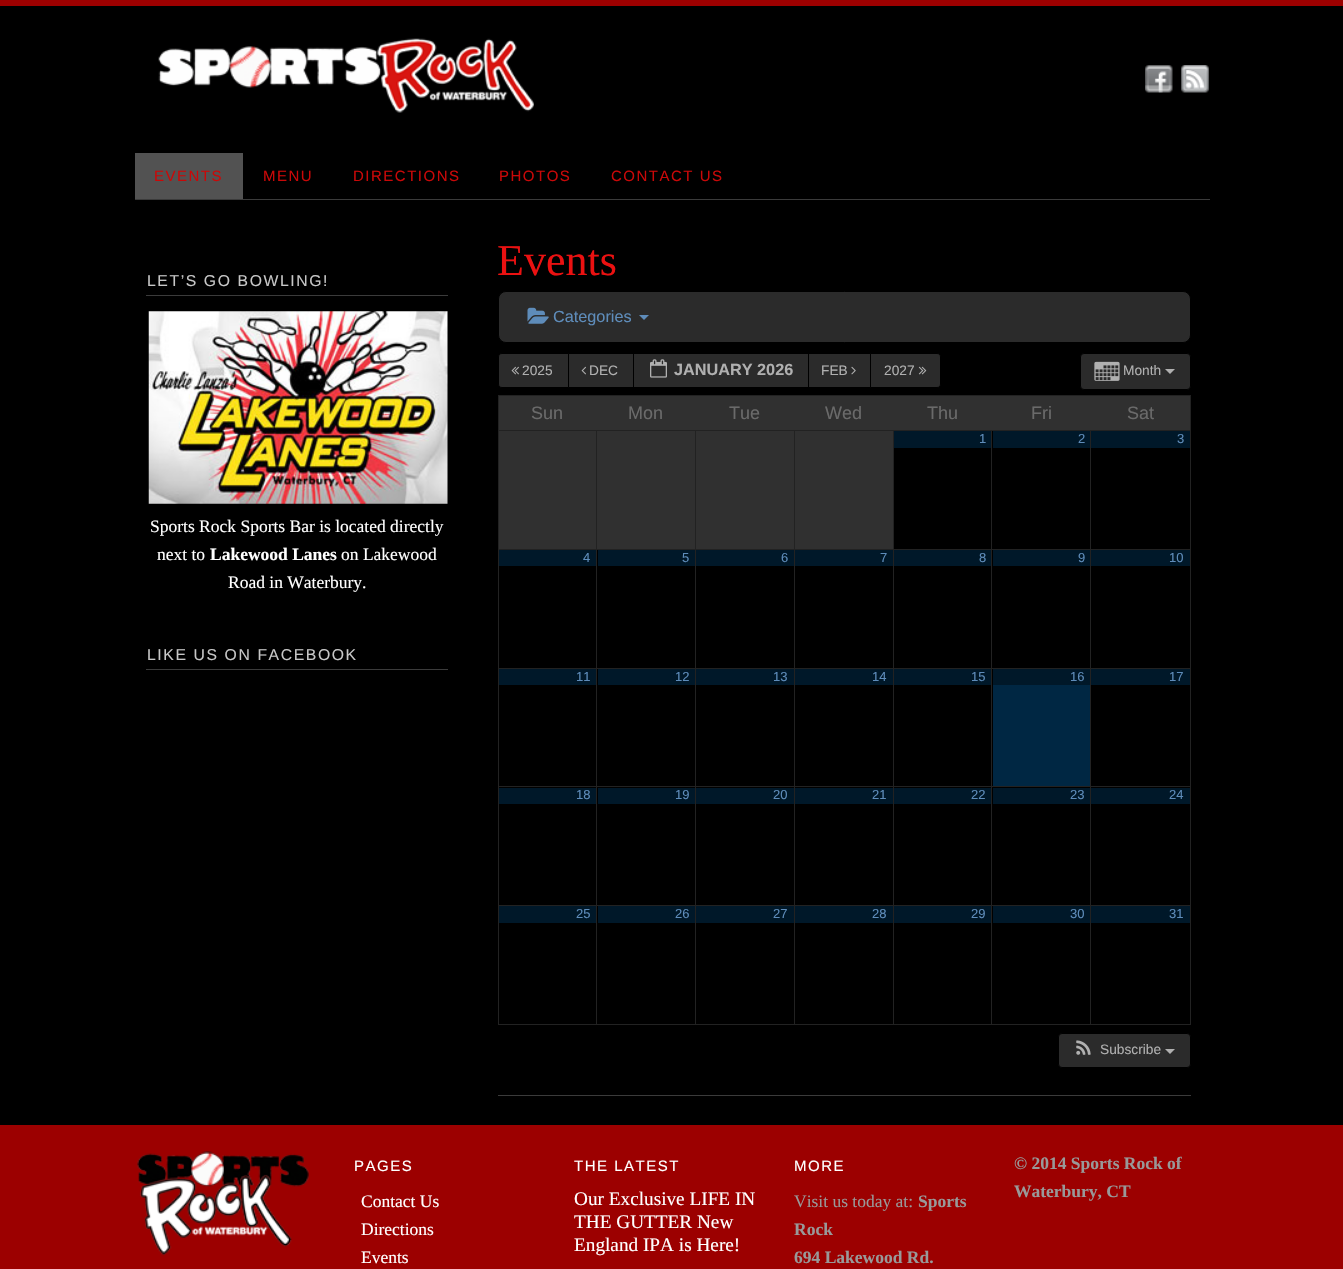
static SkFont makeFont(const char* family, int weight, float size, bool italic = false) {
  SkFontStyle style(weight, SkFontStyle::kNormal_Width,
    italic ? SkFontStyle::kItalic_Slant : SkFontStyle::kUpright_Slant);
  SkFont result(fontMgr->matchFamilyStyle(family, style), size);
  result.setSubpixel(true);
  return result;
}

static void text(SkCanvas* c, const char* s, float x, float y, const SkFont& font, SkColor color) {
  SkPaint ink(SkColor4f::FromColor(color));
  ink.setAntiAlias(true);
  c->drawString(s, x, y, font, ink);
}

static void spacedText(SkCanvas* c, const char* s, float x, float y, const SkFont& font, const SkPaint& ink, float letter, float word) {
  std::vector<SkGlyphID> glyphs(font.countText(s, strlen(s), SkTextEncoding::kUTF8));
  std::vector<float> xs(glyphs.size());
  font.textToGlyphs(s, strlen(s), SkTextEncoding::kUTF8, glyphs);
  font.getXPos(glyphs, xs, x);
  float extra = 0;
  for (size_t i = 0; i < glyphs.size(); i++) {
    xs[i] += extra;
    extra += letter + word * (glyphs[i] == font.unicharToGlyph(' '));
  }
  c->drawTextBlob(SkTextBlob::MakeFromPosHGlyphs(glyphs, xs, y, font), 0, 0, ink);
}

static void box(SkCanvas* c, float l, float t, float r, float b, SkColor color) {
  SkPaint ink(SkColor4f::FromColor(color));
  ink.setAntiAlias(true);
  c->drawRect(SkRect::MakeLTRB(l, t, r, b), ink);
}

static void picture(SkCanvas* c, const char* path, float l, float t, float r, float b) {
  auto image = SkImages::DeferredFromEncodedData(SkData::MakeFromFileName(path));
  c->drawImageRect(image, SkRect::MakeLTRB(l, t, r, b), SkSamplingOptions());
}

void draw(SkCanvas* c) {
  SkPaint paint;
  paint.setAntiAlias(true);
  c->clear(0xff9c0000);
  box(c, 0, 6, 1343, 1125, 0xff000000);
  picture(c, "img_01.png", 158, 38, 534, 113);
  picture(c, "img_02.png", 1145, 65, 1173, 93);
  picture(c, "img_03.png", 1181, 65, 1209, 93);
  box(c, 135, 199, 1210, 200, 0xff3b3b3b);
  box(c, 135, 153, 243, 199, 0xff525252);
  SkFont face1 = makeFont("Liberation Sans", 400, 15);
  paint.setColor(0xffc90808);
  spacedText(c, "EVENTS", 154, 181, face1, paint, 1.5f, 0);
  spacedText(c, "MENU", 263, 181, face1, paint, 1.5f, 0);
  spacedText(c, "DIRECTIONS", 353, 181, face1, paint, 1.5f, 0);
  spacedText(c, "PHOTOS", 499, 181, face1, paint, 1.5f, 0);
  spacedText(c, "CONTACT US", 611, 181, face1, paint, 1.5f, 0);
  box(c, 146, 295, 448, 296, 0xff3b3b3b);
  SkFont face2 = makeFont("Liberation Sans", 400, 15.75f);
  paint.setColor(0xffc7c7c7);
  spacedText(c, "LET’S GO BOWLING!", 147, 286, face2, paint, 1.6f, 0);
  picture(c, "img_04.png", 148, 311, 448, 504);
  SkFont face3 = makeFont("Liberation Serif", 400, 17.5f);
  text(c, "Sports Rock Sports Bar is located directly", 150, 532, face3, 0xffffffff);
  text(c, "next to", 157, 560, face3, 0xffffffff);
  SkFont face4 = makeFont("Liberation Serif", 700, 17.5f);
  text(c, "Lakewood Lanes", 210, 560, face4, 0xffffffff);
  text(c, "on Lakewood", 341, 560, face3, 0xffffffff);
  text(c, "Road in Waterbury.", 228, 588, face3, 0xffffffff);
  box(c, 146, 669, 448, 670, 0xff3b3b3b);
  spacedText(c, "LIKE US ON FACEBOOK", 147, 660, face2, paint, 1.6f, 0);
  box(c, 498, 1095, 1191, 1096, 0xff3b3b3b);
  SkFont face5 = makeFont("Liberation Serif", 400, 44);
  text(c, "Events", 497, 275, face5, 0xffeb1111);
  paint.setColor(0xff2b2b2b);
  c->drawRoundRect(SkRect::MakeLTRB(498.5f, 291.5f, 1190.5f, 342.5f), 7.5f, 7.5f, paint);
  paint.setStyle(SkPaint::kStroke_Style);
  paint.setStrokeWidth(1);
  paint.setColor(0xff000000);
  c->drawRoundRect(SkRect::MakeLTRB(498.5f, 291.5f, 1190.5f, 342.5f), 7.5f, 7.5f, paint);
  picture(c, "img_05.png", 527, 307, 549, 324);
  SkFont face6 = makeFont("Liberation Sans", 400, 16.25f);
  text(c, "Categories", 553, 322, face6, 0xff5e8cba);
  paint.setStyle(SkPaint::kFill_Style);
  paint.setColor(0xff5e8cba);
  c->drawPath(SkPathBuilder().moveTo(639, 315).lineTo(649, 315).lineTo(644, 320).close().detach(), paint);
  paint.setColor(0xff2b2b2b);
  c->drawPath(SkPathBuilder().moveTo(502, 353.5f).lineTo(568.5f, 353.5f).lineTo(568.5f, 387.5f).lineTo(502, 387.5f).cubicTo(500, 387.5f, 498.5f, 386, 498.5f, 384).lineTo(498.5f, 357).cubicTo(498.5f, 355, 500, 353.5f, 502, 353.5f).close().detach(), paint);
  paint.setStyle(SkPaint::kStroke_Style);
  paint.setColor(0xff000000);
  c->drawPath(SkPathBuilder().moveTo(502, 353.5f).lineTo(568.5f, 353.5f).lineTo(568.5f, 387.5f).lineTo(502, 387.5f).cubicTo(500, 387.5f, 498.5f, 386, 498.5f, 384).lineTo(498.5f, 357).cubicTo(498.5f, 355, 500, 353.5f, 502, 353.5f).close().detach(), paint);
  picture(c, "img_06.png", 511, 366, 519, 375);
  SkFont face7 = makeFont("Liberation Sans", 400, 13.75f);
  text(c, "2025", 522, 375, face7, 0xffb0b0b0);
  box(c, 569, 354, 633, 387, 0xff2b2b2b);
  picture(c, "img_07.png", 581, 366, 586, 375);
  text(c, "DEC", 589, 375, face7, 0xffb0b0b0);
  box(c, 634, 354, 808, 387, 0xff2b2b2b);
  picture(c, "img_08.png", 650, 359, 667, 378);
  SkFont face8 = makeFont("Liberation Sans", 700, 16.25f);
  text(c, "JANUARY 2026", 674, 375, face8, 0xffb0b0b0);
  box(c, 809, 354, 870, 387, 0xff2b2b2b);
  text(c, "FEB", 821, 375, face7, 0xffb0b0b0);
  picture(c, "img_09.png", 851, 366, 856, 375);
  paint.setStyle(SkPaint::kFill_Style);
  paint.setColor(0xff2b2b2b);
  c->drawPath(SkPathBuilder().moveTo(870.5f, 353.5f).lineTo(937, 353.5f).cubicTo(939, 353.5f, 940.5f, 355, 940.5f, 357).lineTo(940.5f, 384).cubicTo(940.5f, 386, 939, 387.5f, 937, 387.5f).lineTo(870.5f, 387.5f).close().detach(), paint);
  paint.setStyle(SkPaint::kStroke_Style);
  paint.setColor(0xff000000);
  c->drawPath(SkPathBuilder().moveTo(870.5f, 353.5f).lineTo(937, 353.5f).cubicTo(939, 353.5f, 940.5f, 355, 940.5f, 357).lineTo(940.5f, 384).cubicTo(940.5f, 386, 939, 387.5f, 937, 387.5f).lineTo(870.5f, 387.5f).close().detach(), paint);
  text(c, "2027", 884, 375, face7, 0xffb0b0b0);
  picture(c, "img_10.png", 918, 366, 927, 375);
  paint.setStyle(SkPaint::kFill_Style);
  paint.setColor(0xff2b2b2b);
  c->drawRoundRect(SkRect::MakeLTRB(1080.5f, 353.5f, 1190.5f, 389.5f), 3.5f, 3.5f, paint);
  paint.setStyle(SkPaint::kStroke_Style);
  paint.setColor(0xff000000);
  c->drawRoundRect(SkRect::MakeLTRB(1080.5f, 353.5f, 1190.5f, 389.5f), 3.5f, 3.5f, paint);
  picture(c, "img_11.png", 1094, 361, 1120, 381);
  text(c, "Month", 1123, 375, face7, 0xffb0b0b0);
  paint.setStyle(SkPaint::kFill_Style);
  paint.setColor(0xffb0b0b0);
  c->drawPath(SkPathBuilder().moveTo(1165, 369).lineTo(1175, 369).lineTo(1170, 374).close().detach(), paint);
  box(c, 498, 395, 1191, 396, 0xff222222);
  box(c, 1190, 395, 1191, 1025, 0xff222222);
  box(c, 498, 1024, 1191, 1025, 0xff222222);
  box(c, 498, 395, 499, 1025, 0xff222222);
  box(c, 499, 396, 1190, 430, 0xff303030);
  SkFont face9 = makeFont("Liberation Sans", 400, 18);
  text(c, "Sun", 531, 419, face9, 0xff6a6a6a);
  text(c, "Mon", 628, 419, face9, 0xff6a6a6a);
  text(c, "Tue", 729, 419, face9, 0xff6a6a6a);
  text(c, "Wed", 825, 419, face9, 0xff6a6a6a);
  text(c, "Thu", 927, 419, face9, 0xff6a6a6a);
  text(c, "Fri", 1031, 419, face9, 0xff6a6a6a);
  text(c, "Sat", 1127, 419, face9, 0xff6a6a6a);
  box(c, 499, 431, 596, 549, 0xff303030);
  box(c, 1090, 430, 1191, 431, 0xff222222);
  box(c, 1090, 549, 1191, 550, 0xff222222);
  box(c, 1090, 668, 1191, 669, 0xff222222);
  box(c, 1090, 786, 1191, 787, 0xff222222);
  box(c, 1090, 905, 1191, 906, 0xff222222);
  box(c, 1090, 905, 1091, 1025, 0xff222222);
  box(c, 991, 905, 1091, 906, 0xff222222);
  box(c, 1090, 786, 1091, 906, 0xff222222);
  box(c, 991, 786, 1091, 787, 0xff222222);
  box(c, 1090, 668, 1091, 788, 0xff222222);
  box(c, 991, 668, 1091, 669, 0xff222222);
  box(c, 1090, 549, 1091, 669, 0xff222222);
  box(c, 991, 549, 1091, 550, 0xff222222);
  box(c, 1090, 430, 1091, 550, 0xff222222);
  box(c, 991, 430, 1091, 431, 0xff222222);
  box(c, 991, 905, 992, 1025, 0xff222222);
  box(c, 893, 905, 993, 906, 0xff222222);
  box(c, 991, 786, 992, 906, 0xff222222);
  box(c, 893, 786, 993, 787, 0xff222222);
  box(c, 991, 668, 992, 788, 0xff222222);
  box(c, 893, 668, 993, 669, 0xff222222);
  box(c, 991, 549, 992, 669, 0xff222222);
  box(c, 893, 549, 993, 550, 0xff222222);
  box(c, 991, 430, 992, 550, 0xff222222);
  box(c, 893, 430, 993, 431, 0xff222222);
  box(c, 893, 905, 894, 1025, 0xff222222);
  box(c, 794, 905, 894, 906, 0xff222222);
  box(c, 893, 786, 894, 906, 0xff222222);
  box(c, 794, 786, 894, 787, 0xff222222);
  box(c, 893, 668, 894, 788, 0xff222222);
  box(c, 794, 668, 894, 669, 0xff222222);
  box(c, 893, 549, 894, 669, 0xff222222);
  box(c, 794, 549, 894, 550, 0xff222222);
  box(c, 893, 430, 894, 550, 0xff222222);
  box(c, 794, 430, 894, 431, 0xff222222);
  box(c, 794, 905, 795, 1025, 0xff222222);
  box(c, 695, 905, 795, 906, 0xff222222);
  box(c, 794, 786, 795, 906, 0xff222222);
  box(c, 695, 786, 795, 787, 0xff222222);
  box(c, 794, 668, 795, 788, 0xff222222);
  box(c, 695, 668, 795, 669, 0xff222222);
  box(c, 794, 549, 795, 669, 0xff222222);
  box(c, 695, 549, 795, 550, 0xff222222);
  box(c, 794, 430, 795, 550, 0xff222222);
  box(c, 695, 430, 795, 431, 0xff222222);
  box(c, 695, 905, 696, 1025, 0xff222222);
  box(c, 596, 905, 696, 906, 0xff222222);
  box(c, 695, 786, 696, 906, 0xff222222);
  box(c, 596, 786, 696, 787, 0xff222222);
  box(c, 695, 668, 696, 788, 0xff222222);
  box(c, 596, 668, 696, 669, 0xff222222);
  box(c, 695, 549, 696, 669, 0xff222222);
  box(c, 596, 549, 696, 550, 0xff222222);
  box(c, 695, 430, 696, 550, 0xff222222);
  box(c, 596, 430, 696, 431, 0xff222222);
  box(c, 596, 905, 597, 1025, 0xff222222);
  box(c, 498, 905, 598, 906, 0xff222222);
  box(c, 596, 786, 597, 906, 0xff222222);
  box(c, 498, 786, 598, 787, 0xff222222);
  box(c, 596, 668, 597, 788, 0xff222222);
  box(c, 498, 668, 598, 669, 0xff222222);
  box(c, 596, 549, 597, 669, 0xff222222);
  box(c, 498, 549, 598, 550, 0xff222222);
  box(c, 596, 430, 597, 550, 0xff222222);
  box(c, 498, 430, 598, 431, 0xff222222);
  box(c, 597, 431, 695, 549, 0xff303030);
  box(c, 696, 431, 794, 549, 0xff303030);
  box(c, 795, 431, 893, 549, 0xff303030);
  box(c, 894, 431, 991, 448, 0xff001829);
  SkFont face10 = makeFont("Liberation Sans", 400, 13);
  text(c, "1", 979, 443, face10, 0xff5e8cba);
  box(c, 993, 431, 1090, 448, 0xff001829);
  text(c, "2", 1078, 443, face10, 0xff5e8cba);
  box(c, 1091, 431, 1190, 448, 0xff001829);
  text(c, "3", 1177, 443, face10, 0xff5e8cba);
  box(c, 499, 550, 596, 566, 0xff001829);
  text(c, "4", 583, 562, face10, 0xff5e8cba);
  box(c, 598, 550, 695, 566, 0xff001829);
  text(c, "5", 682, 562, face10, 0xff5e8cba);
  box(c, 696, 550, 794, 566, 0xff001829);
  text(c, "6", 781, 562, face10, 0xff5e8cba);
  box(c, 795, 550, 893, 566, 0xff001829);
  text(c, "7", 880, 562, face10, 0xff5e8cba);
  box(c, 894, 550, 991, 566, 0xff001829);
  text(c, "8", 979, 562, face10, 0xff5e8cba);
  box(c, 993, 550, 1090, 566, 0xff001829);
  text(c, "9", 1078, 562, face10, 0xff5e8cba);
  box(c, 1091, 550, 1190, 566, 0xff001829);
  text(c, "10", 1169, 562, face10, 0xff5e8cba);
  box(c, 499, 669, 596, 685, 0xff001829);
  text(c, "11", 576, 681, face10, 0xff5e8cba);
  box(c, 598, 669, 695, 685, 0xff001829);
  text(c, "12", 675, 681, face10, 0xff5e8cba);
  box(c, 696, 669, 794, 685, 0xff001829);
  text(c, "13", 773, 681, face10, 0xff5e8cba);
  box(c, 795, 669, 893, 685, 0xff001829);
  text(c, "14", 872, 681, face10, 0xff5e8cba);
  box(c, 894, 669, 991, 685, 0xff001829);
  text(c, "15", 971, 681, face10, 0xff5e8cba);
  box(c, 993, 685, 1090, 786, 0xff002743);
  box(c, 993, 669, 1090, 685, 0xff001829);
  text(c, "16", 1070, 681, face10, 0xff5e8cba);
  box(c, 1091, 669, 1190, 685, 0xff001829);
  text(c, "17", 1169, 681, face10, 0xff5e8cba);
  box(c, 499, 788, 596, 804, 0xff001829);
  text(c, "18", 576, 799, face10, 0xff5e8cba);
  box(c, 598, 788, 695, 804, 0xff001829);
  text(c, "19", 675, 799, face10, 0xff5e8cba);
  box(c, 696, 788, 794, 804, 0xff001829);
  text(c, "20", 773, 799, face10, 0xff5e8cba);
  box(c, 795, 788, 893, 804, 0xff001829);
  text(c, "21", 872, 799, face10, 0xff5e8cba);
  box(c, 894, 788, 991, 804, 0xff001829);
  text(c, "22", 971, 799, face10, 0xff5e8cba);
  box(c, 993, 788, 1090, 804, 0xff001829);
  text(c, "23", 1070, 799, face10, 0xff5e8cba);
  box(c, 1091, 788, 1190, 804, 0xff001829);
  text(c, "24", 1169, 799, face10, 0xff5e8cba);
  box(c, 499, 906, 596, 923, 0xff001829);
  text(c, "25", 576, 918, face10, 0xff5e8cba);
  box(c, 598, 906, 695, 923, 0xff001829);
  text(c, "26", 675, 918, face10, 0xff5e8cba);
  box(c, 696, 906, 794, 923, 0xff001829);
  text(c, "27", 773, 918, face10, 0xff5e8cba);
  box(c, 795, 906, 893, 923, 0xff001829);
  text(c, "28", 872, 918, face10, 0xff5e8cba);
  box(c, 894, 906, 991, 923, 0xff001829);
  text(c, "29", 971, 918, face10, 0xff5e8cba);
  box(c, 993, 906, 1090, 923, 0xff001829);
  text(c, "30", 1070, 918, face10, 0xff5e8cba);
  box(c, 1091, 906, 1190, 923, 0xff001829);
  text(c, "31", 1169, 918, face10, 0xff5e8cba);
  paint.setColor(0xff2b2b2b);
  c->drawRoundRect(SkRect::MakeLTRB(1058.5f, 1033.5f, 1190.5f, 1067.5f), 3.5f, 3.5f, paint);
  paint.setStyle(SkPaint::kStroke_Style);
  paint.setColor(0xff000000);
  c->drawRoundRect(SkRect::MakeLTRB(1058.5f, 1033.5f, 1190.5f, 1067.5f), 3.5f, 3.5f, paint);
  picture(c, "img_12.png", 1076, 1040, 1091, 1055);
  text(c, "Subscribe", 1100, 1054, face7, 0xffb0b0b0);
  paint.setStyle(SkPaint::kFill_Style);
  paint.setColor(0xffb0b0b0);
  c->drawPath(SkPathBuilder().moveTo(1165, 1049).lineTo(1175, 1049).lineTo(1170, 1054).close().detach(), paint);
  picture(c, "img_13.png", 137, 1151, 309, 1256);
  paint.setColor(0xffffffff);
  spacedText(c, "PAGES", 354, 1171, face1, paint, 1.5f, 0);
  text(c, "Contact Us", 361, 1207, face3, 0xffffffff);
  text(c, "Directions", 361, 1235, face3, 0xffffffff);
  text(c, "Events", 361, 1263, face3, 0xffffffff);
  spacedText(c, "THE LATEST", 574, 1171, face1, paint, 1.5f, 0);
  SkFont face11 = makeFont("Liberation Serif", 400, 19.25f);
  text(c, "Our Exclusive LIFE IN", 574, 1205, face11, 0xffffffff);
  text(c, "THE GUTTER New", 574, 1228, face11, 0xffffffff);
  text(c, "England IPA is Here!", 574, 1251, face11, 0xffffffff);
  spacedText(c, "MORE", 794, 1171, face1, paint, 1.5f, 0);
  text(c, "Visit us today at:", 794, 1207, face3, 0xff999999);
  text(c, "Sports", 918, 1207, face4, 0xff999999);
  text(c, "Rock", 794, 1235, face4, 0xff999999);
  text(c, "694 Lakewood Rd.", 794, 1263, face4, 0xff999999);
  text(c, "© 2014 Sports Rock of", 1014, 1169, face4, 0xff999999);
  text(c, "Waterbury, CT", 1014, 1197, face4, 0xff999999);
}
